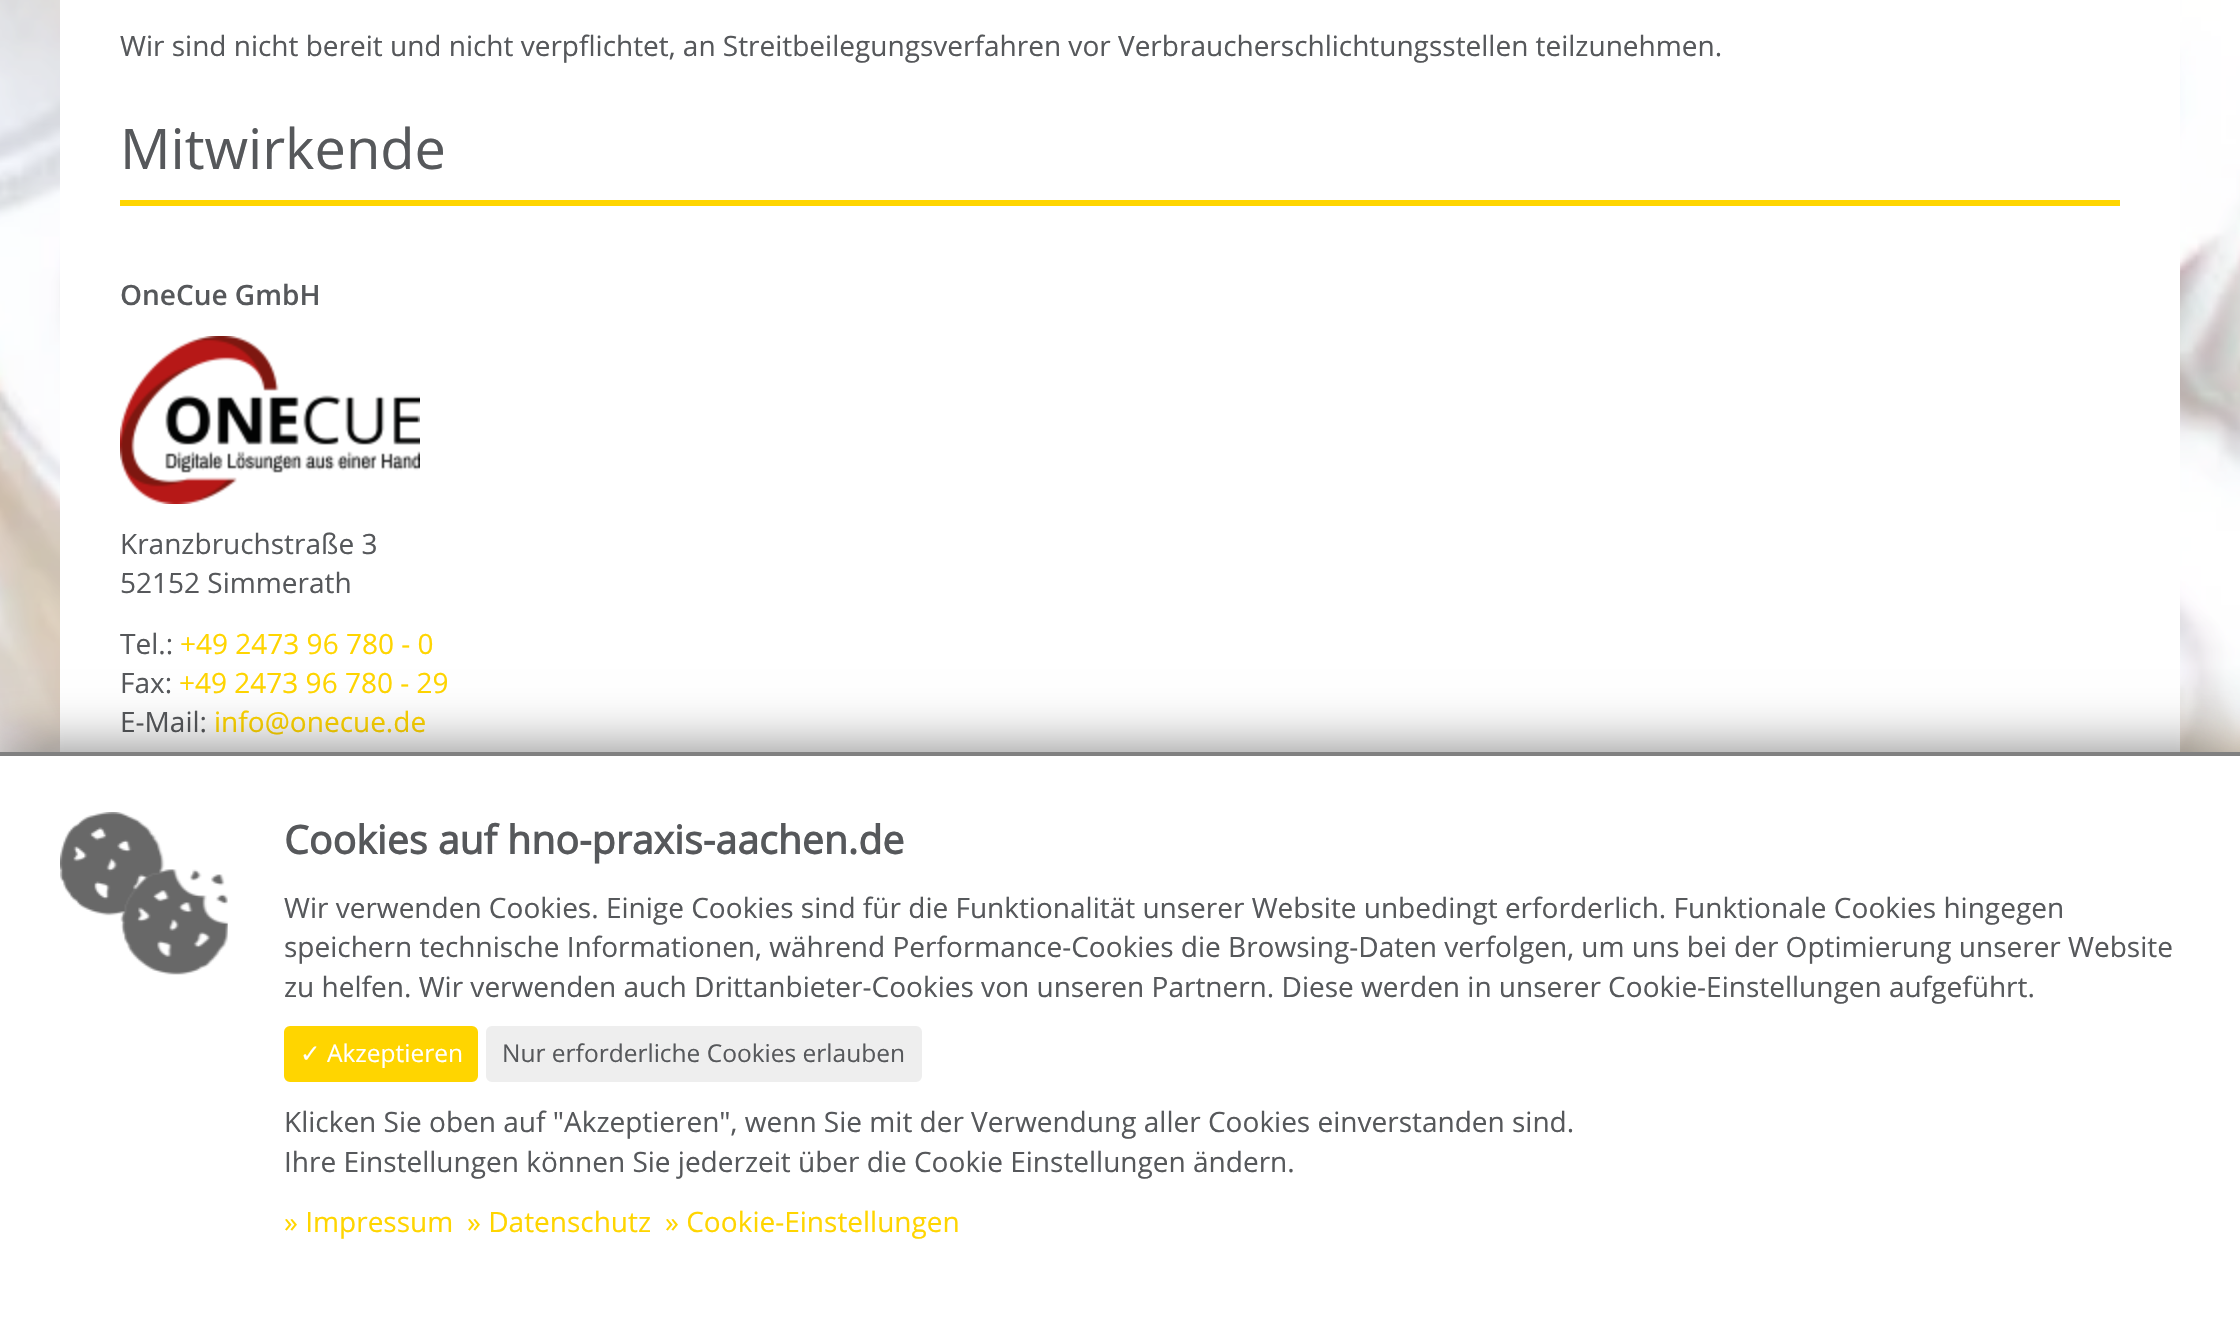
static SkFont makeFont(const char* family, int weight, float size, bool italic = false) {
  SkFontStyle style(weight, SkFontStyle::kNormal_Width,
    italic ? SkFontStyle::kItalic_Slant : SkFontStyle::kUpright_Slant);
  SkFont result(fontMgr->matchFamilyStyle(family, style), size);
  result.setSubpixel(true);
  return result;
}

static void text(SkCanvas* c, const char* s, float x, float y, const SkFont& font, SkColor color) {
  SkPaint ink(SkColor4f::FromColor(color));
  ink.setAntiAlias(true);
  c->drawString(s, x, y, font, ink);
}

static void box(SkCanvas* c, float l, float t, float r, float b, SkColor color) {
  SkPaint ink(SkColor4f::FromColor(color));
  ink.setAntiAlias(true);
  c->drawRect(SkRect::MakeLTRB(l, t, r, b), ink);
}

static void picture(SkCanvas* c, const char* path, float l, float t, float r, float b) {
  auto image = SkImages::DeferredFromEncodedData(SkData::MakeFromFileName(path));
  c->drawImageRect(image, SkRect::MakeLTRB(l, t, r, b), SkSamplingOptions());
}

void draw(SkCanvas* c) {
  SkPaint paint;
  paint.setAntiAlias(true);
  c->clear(0xffffffff);
  picture(c, "img_01.png", 0, 0, 2240, 752);
  box(c, 60, 0, 2180, 752, 0xffffffff);
  SkFont face1 = makeFont("Open Sans", 400, 28);
  text(c, "Wir sind nicht bereit und nicht verpflichtet, an Streitbeilegungsverfahren vor Verbraucherschlichtungsstellen teilzunehmen.", 120, 56, face1, 0xff56585b);
  SkFont face2 = makeFont("Open Sans", 400, 56);
  text(c, "Mitwirkende", 120, 169, face2, 0xff56585b);
  box(c, 120, 200, 2120, 206, 0xffffd500);
  SkFont face3 = makeFont("Open Sans", 600, 28);
  text(c, "OneCue GmbH", 120, 305, face3, 0xff56585b);
  picture(c, "img_02.png", 120, 336, 420, 504);
  text(c, "Kranzbruchstraße 3", 120, 554, face1, 0xff56585b);
  text(c, "52152 Simmerath", 120, 593, face1, 0xff56585b);
  text(c, "Tel.:", 120, 654, face1, 0xff56585b);
  text(c, "+49 2473 96 780 - 0", 180, 654, face1, 0xffffd500);
  text(c, "Fax:", 120, 693, face1, 0xff56585b);
  text(c, "+49 2473 96 780 - 29", 179, 693, face1, 0xffffd500);
  text(c, "E-Mail:", 120, 732, face1, 0xff56585b);
  text(c, "info@onecue.de", 214, 732, face1, 0xffffd500);
  paint.setColor(0x80000000);
  paint.setMaskFilter(SkMaskFilter::MakeBlur(kNormal_SkBlurStyle, 28));
  c->drawRect(SkRect::MakeLTRB(0, 752, 2240, 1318), paint);
  paint.setMaskFilter(nullptr);
  box(c, 0, 756, 2240, 1317, 0xffffffff);
  box(c, 0, 752, 2240, 756, 0xff808080);
  picture(c, "img_03.png", 60, 812, 228, 975);
  SkFont face4 = makeFont("Open Sans", 700, 39.25f);
  text(c, "Cookies auf hno-praxis-aachen.de", 284, 854, face4, 0xff56585b);
  text(c, "Wir verwenden Cookies. Einige Cookies sind für die Funktionalität unserer Website unbedingt erforderlich. Funktionale Cookies hingegen", 284, 918, face1, 0xff56585b);
  text(c, "speichern technische Informationen, während Performance-Cookies die Browsing-Daten verfolgen, um uns bei der Optimierung unserer Website", 284, 957, face1, 0xff56585b);
  text(c, "zu helfen. Wir verwenden auch Drittanbieter-Cookies von unseren Partnern. Diese werden in unserer Cookie-Einstellungen aufgeführt.", 284, 997, face1, 0xff56585b);
  paint.setColor(0xffffd500);
  c->drawRoundRect(SkRect::MakeLTRB(285, 1027, 477, 1081), 5, 5, paint);
  paint.setStyle(SkPaint::kStroke_Style);
  paint.setStrokeWidth(2);
  c->drawRoundRect(SkRect::MakeLTRB(285, 1027, 477, 1081), 5, 5, paint);
  SkFont face5 = makeFont("DejaVu Sans", 400, 24.5f);
  text(c, "✓", 300, 1062, face5, 0xffffffff);
  SkFont face6 = makeFont("Open Sans", 400, 24.5f);
  text(c, "Akzeptieren", 327, 1062, face6, 0xffffffff);
  paint.setStyle(SkPaint::kFill_Style);
  paint.setColor(0xffeeeeee);
  c->drawRoundRect(SkRect::MakeLTRB(487, 1027, 921, 1081), 5, 5, paint);
  paint.setStyle(SkPaint::kStroke_Style);
  c->drawRoundRect(SkRect::MakeLTRB(487, 1027, 921, 1081), 5, 5, paint);
  text(c, "Nur erforderliche Cookies erlauben", 502, 1062, face6, 0xff56585b);
  text(c, "Klicken Sie oben auf \"Akzeptieren\", wenn Sie mit der Verwendung aller Cookies einverstanden sind.", 284, 1132, face1, 0xff56585b);
  text(c, "Ihre Einstellungen können Sie jederzeit über die Cookie Einstellungen ändern.", 284, 1172, face1, 0xff56585b);
  text(c, "» Impressum", 284, 1232, face1, 0xffffd500);
  text(c, "» Datenschutz", 467, 1232, face1, 0xffffd500);
  text(c, "» Cookie-Einstellungen", 665, 1232, face1, 0xffffd500);
}
